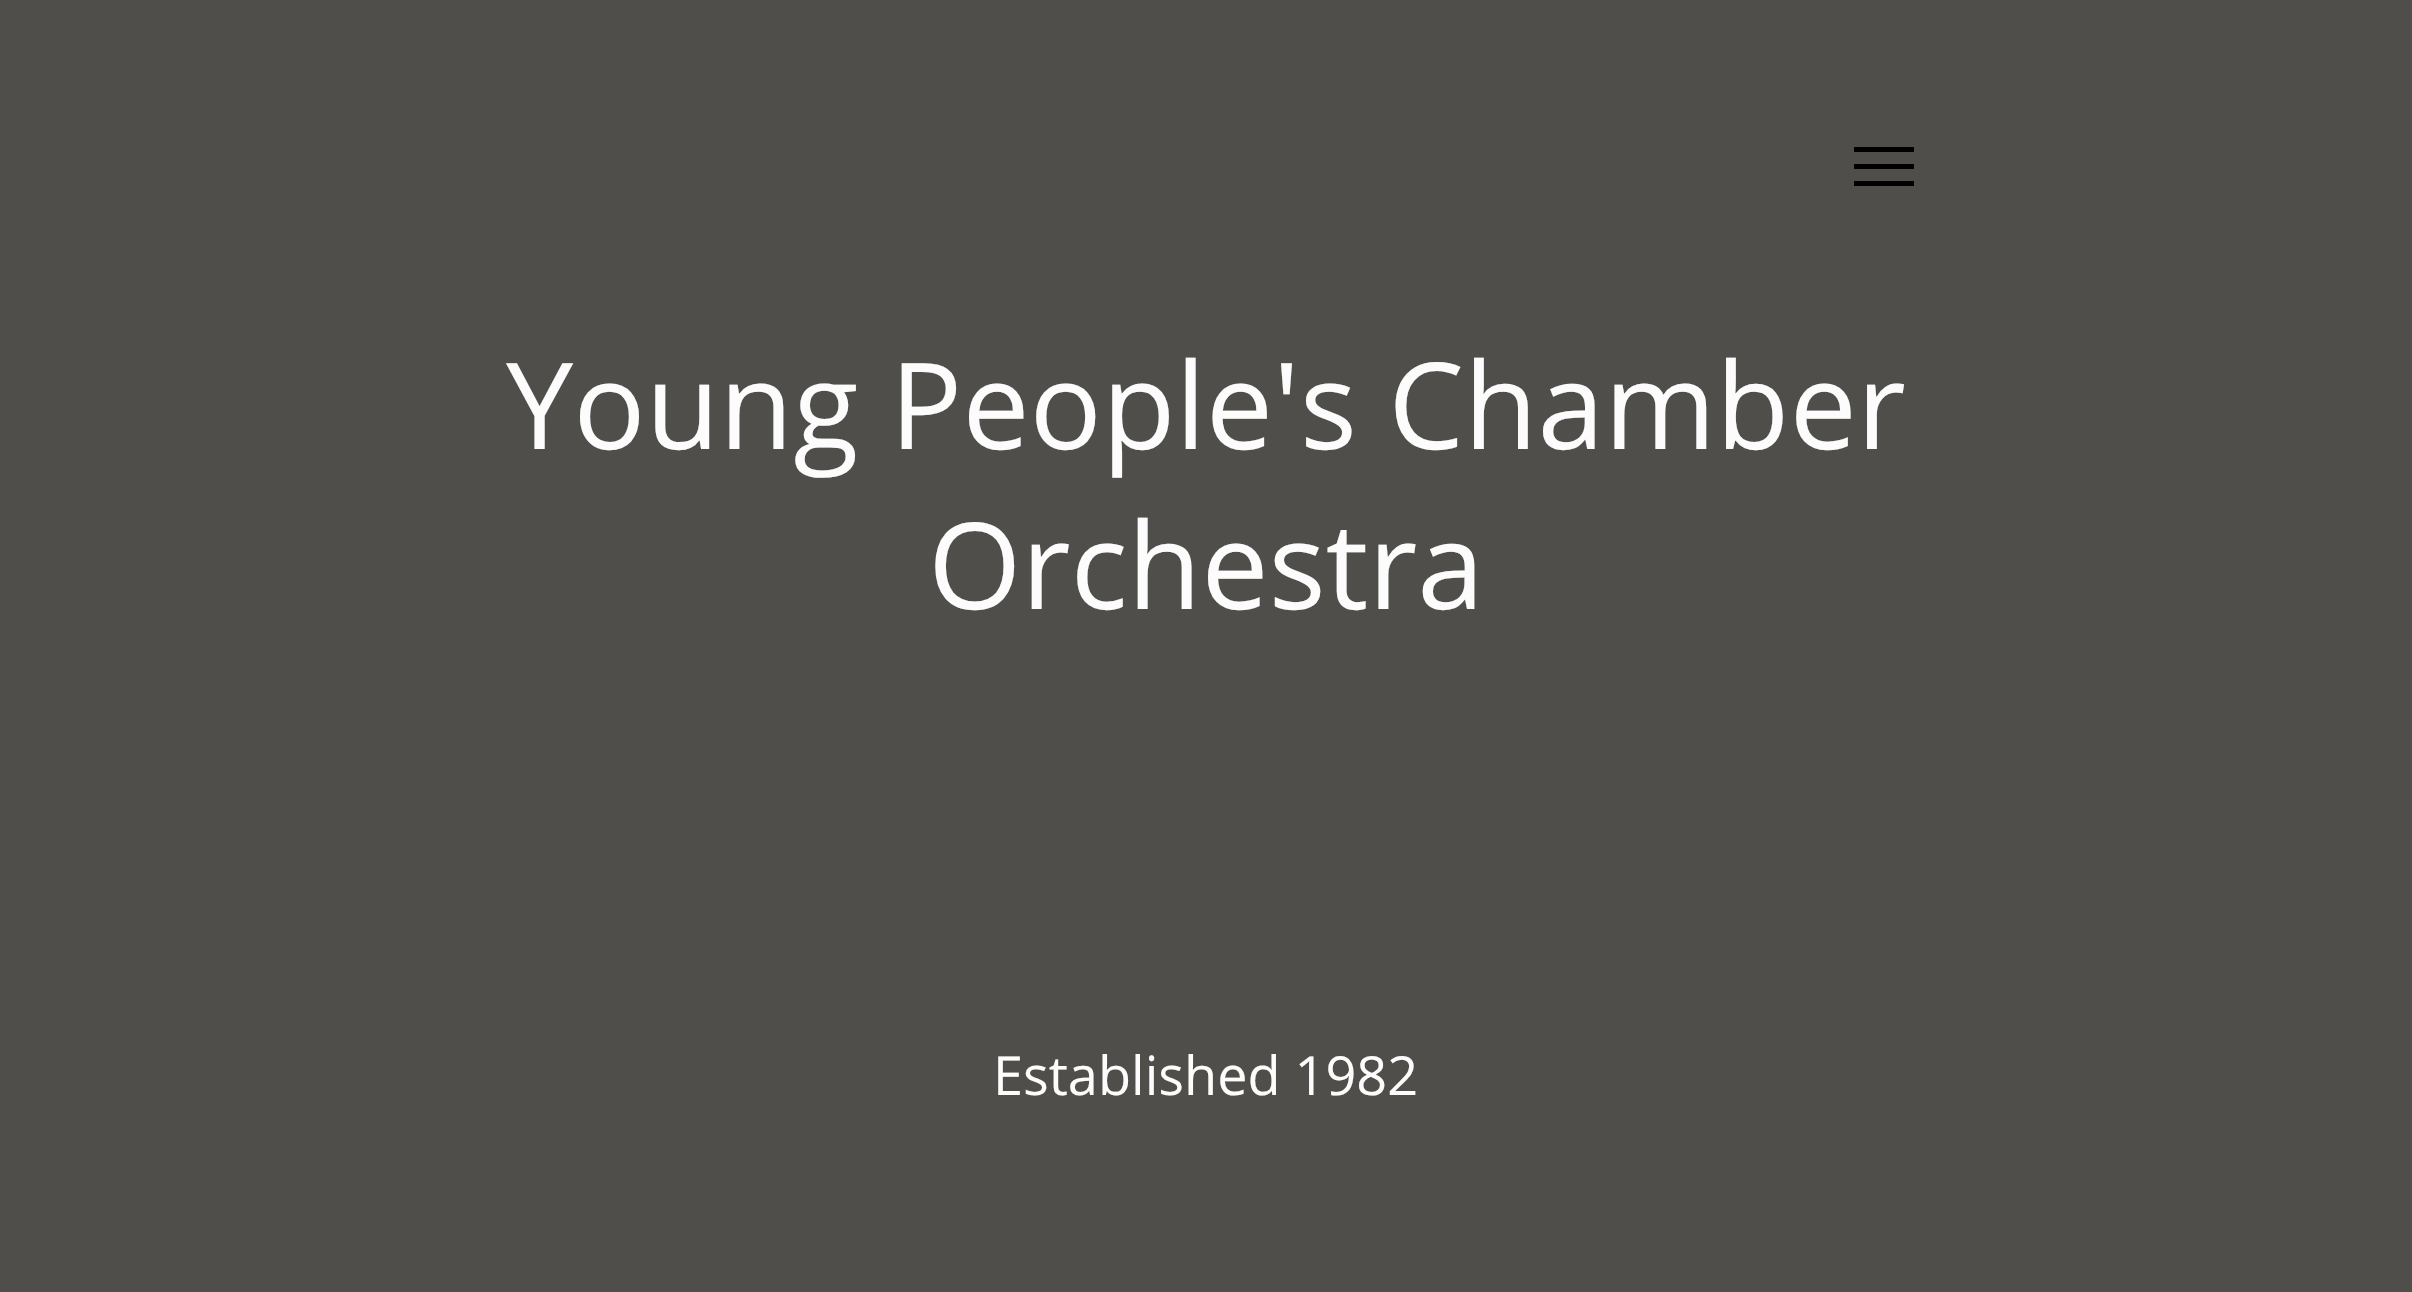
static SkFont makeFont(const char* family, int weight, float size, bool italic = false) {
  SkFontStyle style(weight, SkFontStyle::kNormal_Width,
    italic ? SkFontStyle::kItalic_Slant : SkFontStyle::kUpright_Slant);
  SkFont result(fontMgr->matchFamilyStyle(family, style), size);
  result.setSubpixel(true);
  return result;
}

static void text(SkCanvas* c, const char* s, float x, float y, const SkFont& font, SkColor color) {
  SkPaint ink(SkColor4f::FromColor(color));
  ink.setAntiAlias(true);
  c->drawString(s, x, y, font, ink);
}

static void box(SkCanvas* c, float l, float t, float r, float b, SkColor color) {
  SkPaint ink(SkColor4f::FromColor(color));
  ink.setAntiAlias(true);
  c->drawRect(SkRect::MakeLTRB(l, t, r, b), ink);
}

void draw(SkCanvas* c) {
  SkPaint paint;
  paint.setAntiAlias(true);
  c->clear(0xff4f4e4a);
  box(c, 1854, 181, 1914, 186, 0xff000000);
  box(c, 1854, 147, 1914, 152, 0xff000000);
  box(c, 1854, 164, 1914, 169, 0xff000000);
  SkFont face1 = makeFont("Open Sans", 400, 120);
  text(c, "Young People's Chamber", 506, 449, face1, 0xfffcfcfc);
  text(c, "Orchestra", 928, 609, face1, 0xfffcfcfc);
  SkFont face2 = makeFont("Open Sans", 400, 54);
  text(c, "Established 1982", 993, 1095, face2, 0xfffcfcfc);
}
